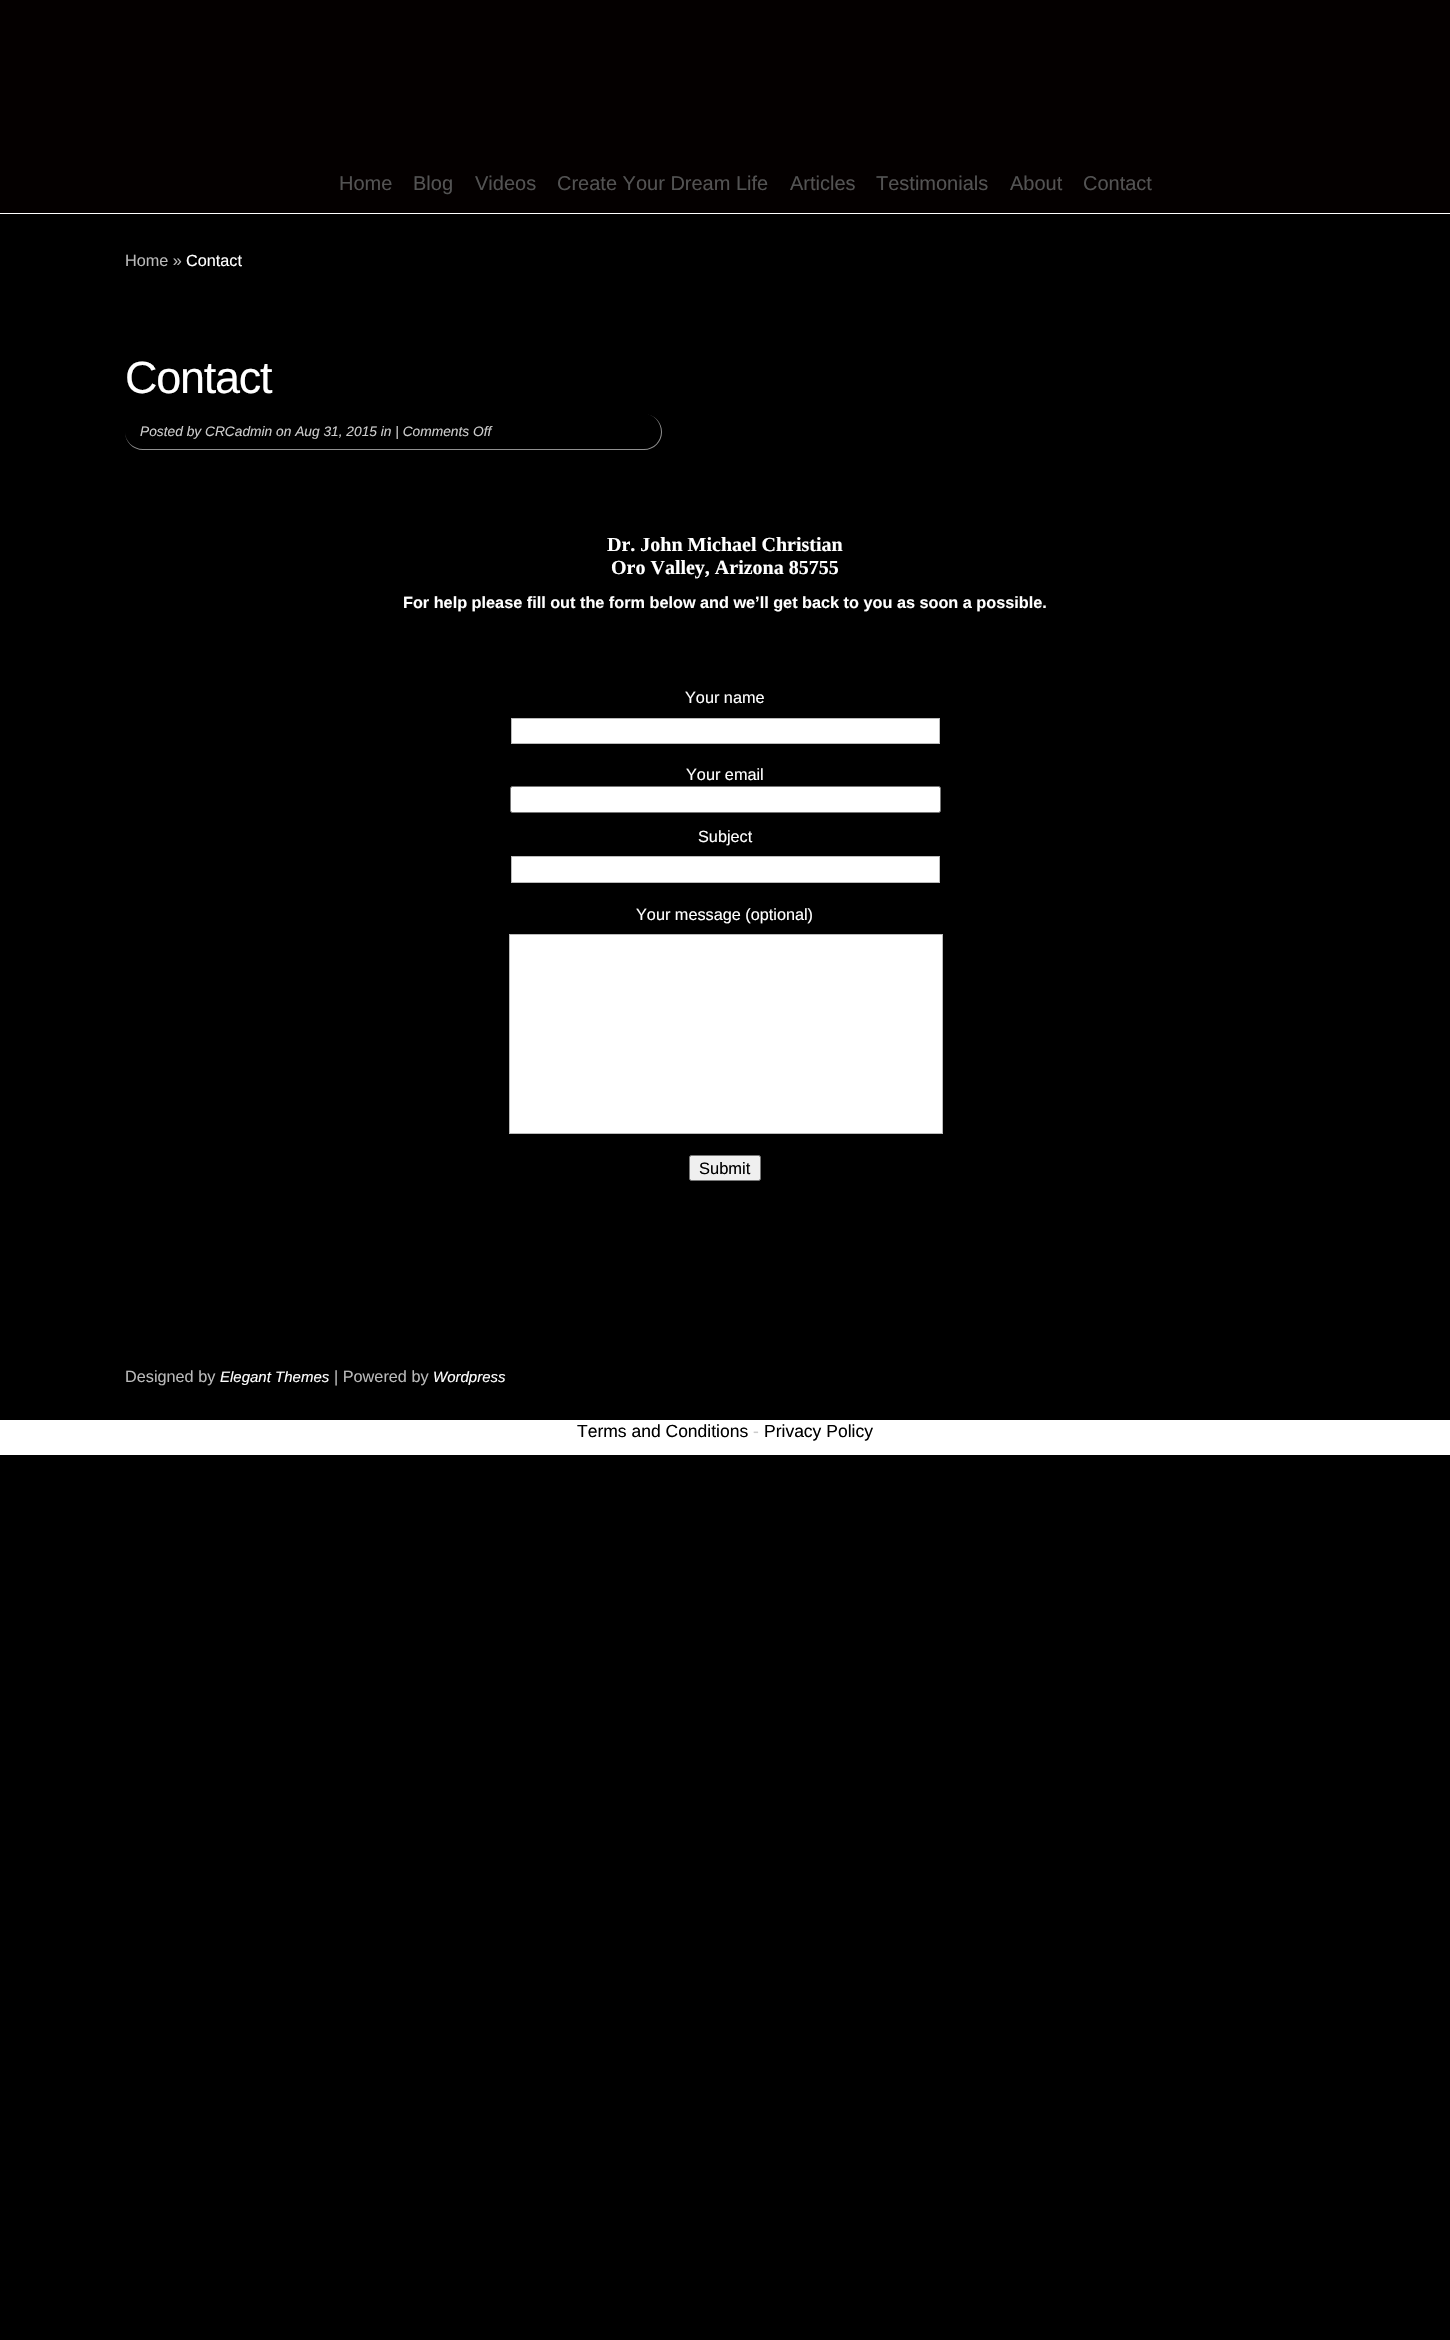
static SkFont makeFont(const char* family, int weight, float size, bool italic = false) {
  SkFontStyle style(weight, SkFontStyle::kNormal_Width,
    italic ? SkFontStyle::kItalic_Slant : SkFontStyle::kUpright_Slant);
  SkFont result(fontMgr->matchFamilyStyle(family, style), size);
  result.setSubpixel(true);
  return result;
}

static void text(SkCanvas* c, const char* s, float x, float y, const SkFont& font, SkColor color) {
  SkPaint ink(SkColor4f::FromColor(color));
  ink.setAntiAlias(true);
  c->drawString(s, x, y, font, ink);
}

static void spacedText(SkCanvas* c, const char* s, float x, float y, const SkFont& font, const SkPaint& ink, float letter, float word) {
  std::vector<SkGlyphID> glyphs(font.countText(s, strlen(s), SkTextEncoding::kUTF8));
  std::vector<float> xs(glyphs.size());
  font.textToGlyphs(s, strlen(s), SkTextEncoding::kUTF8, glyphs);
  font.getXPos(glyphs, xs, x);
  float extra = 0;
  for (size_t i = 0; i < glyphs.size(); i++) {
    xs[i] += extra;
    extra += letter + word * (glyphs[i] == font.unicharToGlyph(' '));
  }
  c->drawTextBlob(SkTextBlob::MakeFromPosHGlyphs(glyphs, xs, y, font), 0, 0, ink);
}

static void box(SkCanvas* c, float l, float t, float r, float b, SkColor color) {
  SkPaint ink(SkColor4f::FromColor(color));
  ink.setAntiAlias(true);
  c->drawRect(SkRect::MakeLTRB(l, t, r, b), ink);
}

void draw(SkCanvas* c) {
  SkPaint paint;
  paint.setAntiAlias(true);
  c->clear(0xff000000);
  box(c, 0, 0, 1450, 213, 0xff040000);
  box(c, 0, 213, 1450, 214, 0xffffffff);
  SkFont face1 = makeFont("Liberation Sans", 400, 20);
  text(c, "Home", 339, 190, face1, 0xff535353);
  text(c, "Blog", 413, 190, face1, 0xff535353);
  text(c, "Videos", 475, 190, face1, 0xff535353);
  text(c, "Create Your Dream Life", 557, 190, face1, 0xff535353);
  text(c, "Articles", 790, 190, face1, 0xff535353);
  text(c, "Testimonials", 876, 190, face1, 0xff535353);
  text(c, "About", 1010, 190, face1, 0xff535353);
  text(c, "Contact", 1083, 190, face1, 0xff535353);
  SkFont face2 = makeFont("Liberation Sans", 400, 16.25f);
  text(c, "Home »", 125, 266, face2, 0xffb9b9b9);
  text(c, "Contact", 186, 266, face2, 0xffffffff);
  SkFont face3 = makeFont("Liberation Sans", 400, 45);
  paint.setColor(0xffffffff);
  spacedText(c, "Contact", 125, 393, face3, paint, -1.25f, 0);
  paint.setColor(0xff909090);
  c->drawPath(SkPathBuilder(SkPathFillType::kEvenOdd).moveTo(143, 414).lineTo(644, 414).cubicTo(654, 414, 662, 422, 662, 432).cubicTo(662, 442, 654, 450, 644, 450).lineTo(143, 450).cubicTo(133, 450, 125, 442, 125, 432).cubicTo(125, 422, 133, 414, 143, 414).close().moveTo(143, 414).lineTo(644, 414).cubicTo(654, 414, 661, 422, 661, 432).cubicTo(661, 441, 654, 449, 644, 449).lineTo(143, 449).cubicTo(133, 449, 125, 441, 125, 432).cubicTo(125, 422, 133, 414, 143, 414).close().detach(), paint);
  SkFont face4 = makeFont("Liberation Sans", 400, 13.75f, true);
  text(c, "Posted by CRCadmin on Aug 31, 2015 in | Comments Off", 140, 436, face4, 0xffcccccc);
  SkFont face5 = makeFont("Liberation Serif", 700, 20);
  text(c, "Dr. John Michael Christian", 607, 551, face5, 0xffffffff);
  text(c, "Oro Valley, Arizona 85755", 611, 574, face5, 0xffffffff);
  SkFont face6 = makeFont("Liberation Sans", 700, 16.25f);
  text(c, "For help please fill out the form below and we’ll get back to you as soon a possible.", 403, 608, face6, 0xffffffff);
  text(c, "Your name", 685, 703, face2, 0xffffffff);
  paint.setColor(0xffffffff);
  c->drawRect(SkRect::MakeLTRB(511.5f, 718.5f, 939.5f, 743.5f), paint);
  paint.setStyle(SkPaint::kStroke_Style);
  paint.setStrokeWidth(1);
  paint.setColor(0xffbbbbbb);
  c->drawRect(SkRect::MakeLTRB(511.5f, 718.5f, 939.5f, 743.5f), paint);
  text(c, "Your email", 686, 780, face2, 0xffffffff);
  paint.setStyle(SkPaint::kFill_Style);
  paint.setColor(0xffffffff);
  c->drawRoundRect(SkRect::MakeLTRB(510.5f, 786.5f, 940.5f, 812.5f), 2, 2, paint);
  paint.setStyle(SkPaint::kStroke_Style);
  paint.setColor(0xff767676);
  c->drawRoundRect(SkRect::MakeLTRB(510.5f, 786.5f, 940.5f, 812.5f), 2, 2, paint);
  text(c, "Subject", 698, 842, face2, 0xffffffff);
  paint.setStyle(SkPaint::kFill_Style);
  paint.setColor(0xffffffff);
  c->drawRect(SkRect::MakeLTRB(511.5f, 856.5f, 939.5f, 882.5f), paint);
  paint.setStyle(SkPaint::kStroke_Style);
  paint.setColor(0xffbbbbbb);
  c->drawRect(SkRect::MakeLTRB(511.5f, 856.5f, 939.5f, 882.5f), paint);
  text(c, "Your message (optional)", 636, 920, face2, 0xffffffff);
  paint.setStyle(SkPaint::kFill_Style);
  paint.setColor(0xffffffff);
  c->drawRect(SkRect::MakeLTRB(509.5f, 934.5f, 942.5f, 1133.5f), paint);
  paint.setStyle(SkPaint::kStroke_Style);
  paint.setColor(0xffbbbbbb);
  c->drawRect(SkRect::MakeLTRB(509.5f, 934.5f, 942.5f, 1133.5f), paint);
  paint.setStyle(SkPaint::kFill_Style);
  paint.setColor(0xffefefef);
  c->drawRoundRect(SkRect::MakeLTRB(689.5f, 1155.5f, 760.5f, 1180.5f), 2, 2, paint);
  paint.setStyle(SkPaint::kStroke_Style);
  paint.setColor(0xff767676);
  c->drawRoundRect(SkRect::MakeLTRB(689.5f, 1155.5f, 760.5f, 1180.5f), 2, 2, paint);
  SkFont face7 = makeFont("Liberation Sans", 400, 16.5f);
  text(c, "Submit", 699, 1174, face7, 0xff000000);
  text(c, "Designed by", 125, 1382, face2, 0xffb9b9b9);
  SkFont face8 = makeFont("Liberation Sans", 400, 15, true);
  text(c, "Elegant Themes", 220, 1382, face8, 0xffffffff);
  text(c, "| Powered by", 334, 1382, face2, 0xffb9b9b9);
  text(c, "Wordpress", 433, 1382, face8, 0xffffffff);
  box(c, 0, 1420, 1450, 1455, 0xffffffff);
  SkFont face9 = makeFont("Liberation Sans", 400, 17.5f);
  text(c, "Terms and Conditions", 577, 1437, face9, 0xff000000);
  text(c, "-", 753, 1437, face9, 0xffcccccc);
  text(c, "Privacy Policy", 764, 1437, face9, 0xff000000);
}
